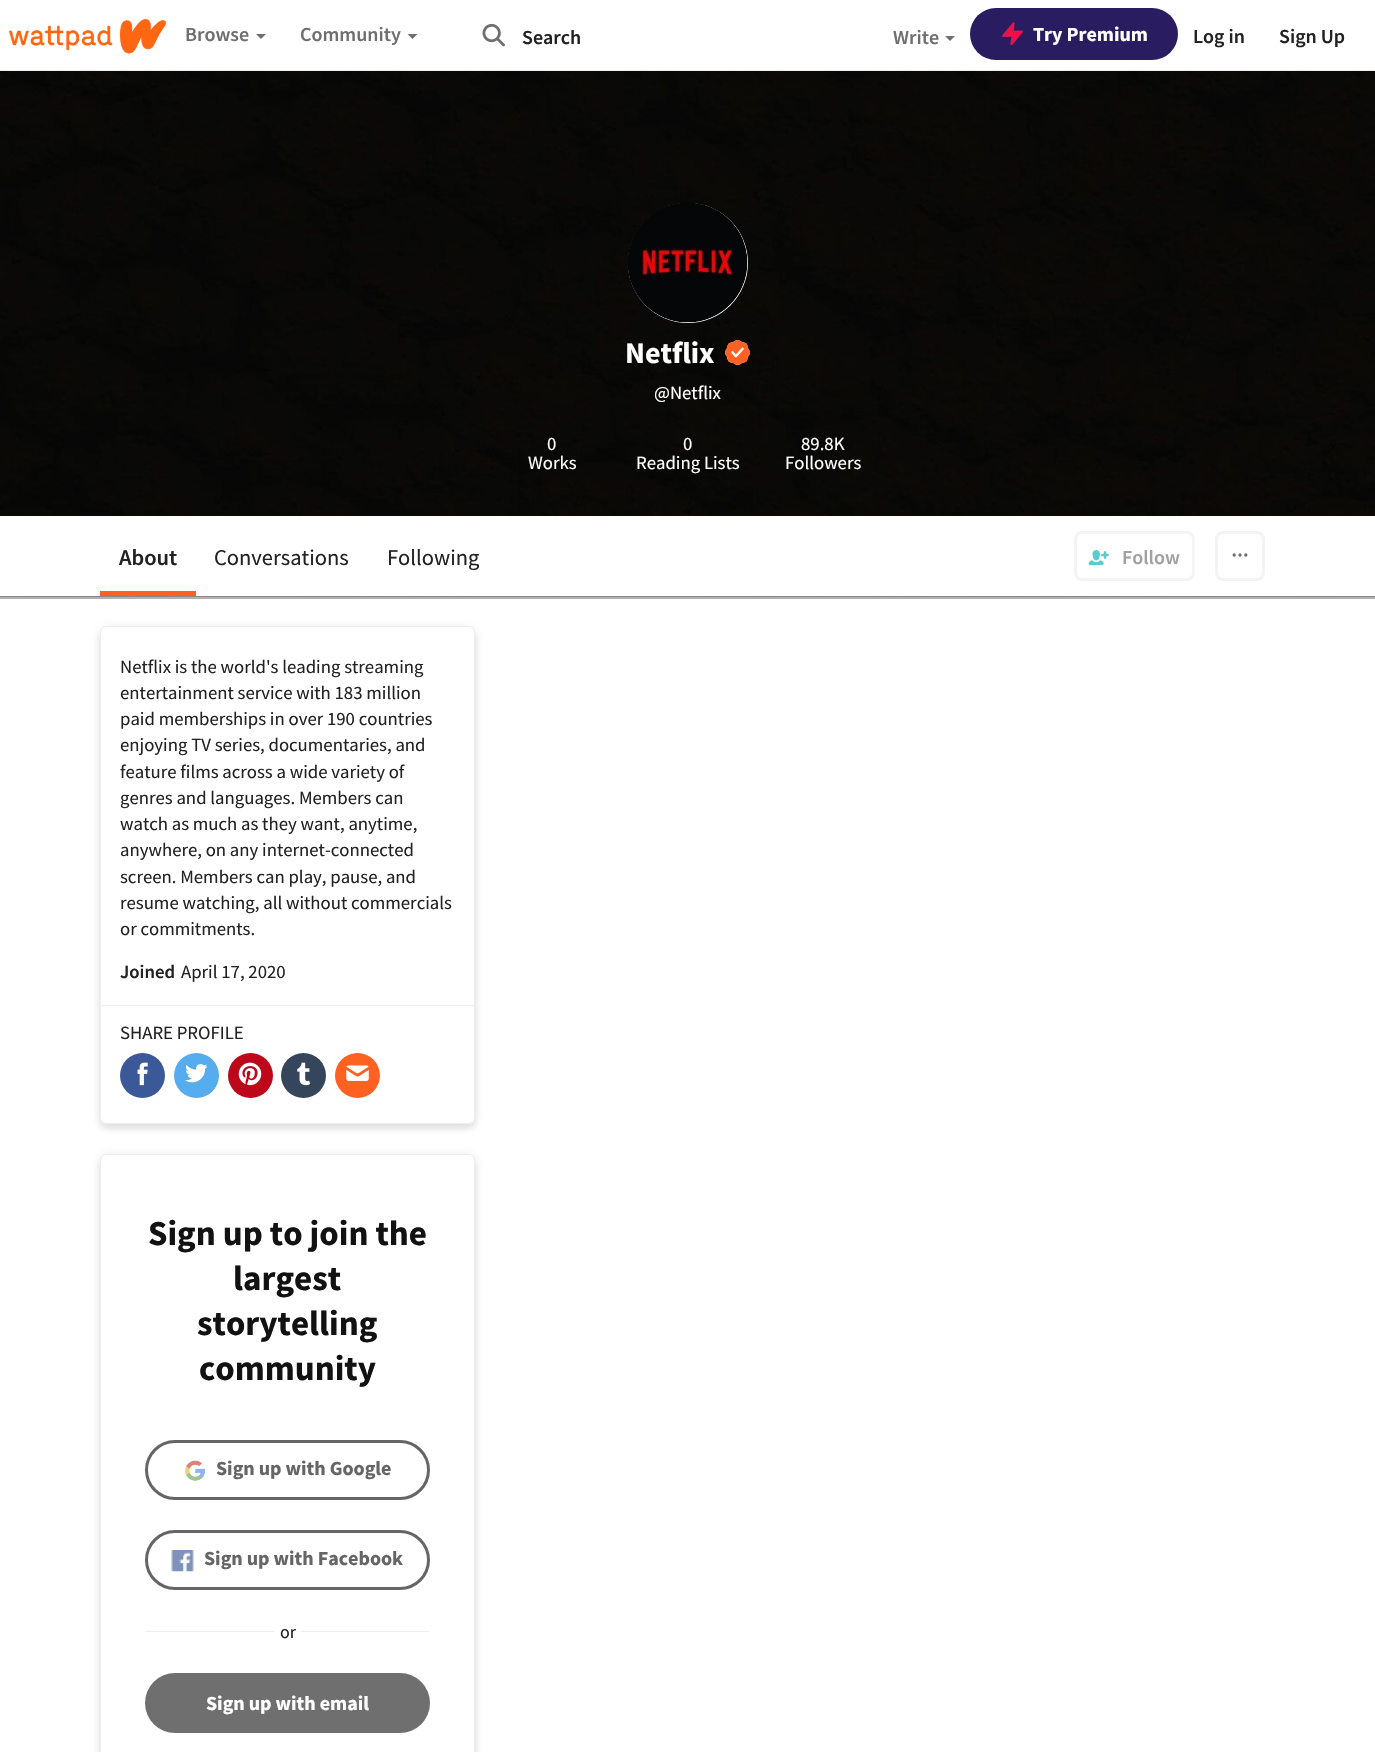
static SkFont makeFont(const char* family, int weight, float size, bool italic = false) {
  SkFontStyle style(weight, SkFontStyle::kNormal_Width,
    italic ? SkFontStyle::kItalic_Slant : SkFontStyle::kUpright_Slant);
  SkFont result(fontMgr->matchFamilyStyle(family, style), size);
  result.setSubpixel(true);
  return result;
}

static void text(SkCanvas* c, const char* s, float x, float y, const SkFont& font, SkColor color) {
  SkPaint ink(SkColor4f::FromColor(color));
  ink.setAntiAlias(true);
  c->drawString(s, x, y, font, ink);
}

static void box(SkCanvas* c, float l, float t, float r, float b, SkColor color) {
  SkPaint ink(SkColor4f::FromColor(color));
  ink.setAntiAlias(true);
  c->drawRect(SkRect::MakeLTRB(l, t, r, b), ink);
}

static void roundBox(SkCanvas* c, float l, float t, float r, float b, float radius, SkColor color) {
  SkPaint ink(SkColor4f::FromColor(color));
  ink.setAntiAlias(true);
  c->drawRoundRect(SkRect::MakeLTRB(l, t, r, b), radius, radius, ink);
}

static void picture(SkCanvas* c, const char* path, float l, float t, float r, float b) {
  auto image = SkImages::DeferredFromEncodedData(SkData::MakeFromFileName(path));
  c->drawImageRect(image, SkRect::MakeLTRB(l, t, r, b), SkSamplingOptions());
}

void draw(SkCanvas* c) {
  SkPaint paint;
  paint.setAntiAlias(true);
  c->clear(0xffffffff);
  box(c, 0, 70, 1375, 71, 0xffeeeeee);
  picture(c, "img_01.png", 8, 18, 167, 54);
  SkFont face1 = makeFont("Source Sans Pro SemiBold", 600, 20);
  text(c, "Browse", 185, 41, face1, 0xff6f6f6f);
  paint.setColor(0xff6f6f6f);
  c->drawPath(SkPathBuilder().moveTo(256, 34).lineTo(266, 34).lineTo(261, 39).close().detach(), paint);
  text(c, "Community", 300, 41, face1, 0xff6f6f6f);
  c->drawPath(SkPathBuilder().moveTo(407.5f, 34).lineTo(417.5f, 34).lineTo(412.5f, 39).close().detach(), paint);
  picture(c, "img_02.png", 482, 23, 505, 47);
  text(c, "Search", 522, 44, face1, 0xff222222);
  text(c, "Write", 893, 44, face1, 0xff6f6f6f);
  c->drawPath(SkPathBuilder().moveTo(945, 36).lineTo(955, 36).lineTo(950, 41).close().detach(), paint);
  roundBox(c, 970, 8, 1178, 60, 26, 0xff2a1c60);
  picture(c, "img_03.png", 1002, 22, 1023, 46);
  SkFont face2 = makeFont("Source Sans Pro", 700, 20);
  text(c, "Try Premium", 1033, 41, face2, 0xffffffff);
  text(c, "Log in", 1193, 43, face1, 0xff222222);
  text(c, "Sign Up", 1279, 43, face1, 0xff222222);
  picture(c, "img_04.png", 0, 71, 1375, 597);
  paint.setColor(0xffeeeeee);
  c->drawCircle(688, 263, 60, paint);
  picture(c, "img_05.png", 628, 203, 748, 323);
  SkFont face3 = makeFont("Source Sans Pro", 700, 30);
  text(c, "Netflix", 625, 363, face3, 0xffffffff);
  picture(c, "img_06.png", 725, 340, 750, 365);
  SkFont face4 = makeFont("Source Sans Pro", 400, 18.75f);
  text(c, "@Netflix", 654, 399, face4, 0xffffffff);
  text(c, "0", 547, 450, face4, 0xffffffff);
  text(c, "Works", 528, 469, face4, 0xffffffff);
  text(c, "0", 683, 450, face4, 0xffffffff);
  text(c, "Reading Lists", 636, 469, face4, 0xffffffff);
  text(c, "89.8K", 801, 450, face4, 0xffffffff);
  text(c, "Followers", 785, 469, face4, 0xffffffff);
  box(c, 0, 596, 1375, 599, 0x4d000000);
  box(c, 0, 516, 1375, 596, 0xffffffff);
  box(c, 100, 591, 196, 596, 0xffff6122);
  SkFont face5 = makeFont("Source Sans Pro SemiBold", 600, 22.5f);
  text(c, "About", 119, 565, face5, 0xff222222);
  SkFont face6 = makeFont("Source Sans Pro", 400, 22.5f);
  text(c, "Conversations", 214, 565, face6, 0xff222222);
  text(c, "Following", 387, 565, face6, 0xff222222);
  paint.setStyle(SkPaint::kStroke_Style);
  paint.setStrokeWidth(3);
  paint.setColor(0xfff4f4f4);
  c->drawRoundRect(SkRect::MakeLTRB(1075.5f, 532.5f, 1193.5f, 579.5f), 6.5f, 6.5f, paint);
  picture(c, "img_07.png", 1088, 550, 1109, 565);
  text(c, "Follow", 1122, 564, face1, 0xffa1a1a1);
  c->drawRoundRect(SkRect::MakeLTRB(1216.5f, 532.5f, 1263.5f, 579.5f), 6.5f, 6.5f, paint);
  paint.setStrokeWidth(1.7f);
  paint.setColor(0xff6f6f6f);
  c->drawCircle(1234.2f, 555, 0.8f, paint);
  c->drawCircle(1240, 555, 0.8f, paint);
  c->drawCircle(1245.8f, 555, 0.8f, paint);
  paint.setStyle(SkPaint::kFill_Style);
  paint.setColor(0x1a222222);
  paint.setMaskFilter(SkMaskFilter::MakeBlur(kNormal_SkBlurStyle, 3));
  c->drawRoundRect(SkRect::MakeLTRB(100, 631, 475, 1129), 6, 6, paint);
  paint.setMaskFilter(nullptr);
  paint.setColor(0x14222222);
  paint.setMaskFilter(SkMaskFilter::MakeBlur(kNormal_SkBlurStyle, 6));
  c->drawRoundRect(SkRect::MakeLTRB(100, 628, 475, 1125), 6, 6, paint);
  paint.setMaskFilter(nullptr);
  paint.setColor(0xffffffff);
  c->drawRoundRect(SkRect::MakeLTRB(100.5f, 626.5f, 474.5f, 1123.5f), 5.5f, 5.5f, paint);
  paint.setStyle(SkPaint::kStroke_Style);
  paint.setStrokeWidth(1);
  paint.setColor(0xffeeeeee);
  c->drawRoundRect(SkRect::MakeLTRB(100.5f, 626.5f, 474.5f, 1123.5f), 5.5f, 5.5f, paint);
  text(c, "Netflix is the world's leading streaming", 120, 673, face4, 0xff222222);
  text(c, "entertainment service with 183 million", 120, 699, face4, 0xff222222);
  text(c, "paid memberships in over 190 countries", 120, 725, face4, 0xff222222);
  text(c, "enjoying TV series, documentaries, and", 120, 751, face4, 0xff222222);
  text(c, "feature films across a wide variety of", 120, 778, face4, 0xff222222);
  text(c, "genres and languages. Members can", 120, 804, face4, 0xff222222);
  text(c, "watch as much as they want, anytime,", 120, 830, face4, 0xff222222);
  text(c, "anywhere, on any internet-connected", 120, 856, face4, 0xff222222);
  text(c, "screen. Members can play, pause, and", 120, 883, face4, 0xff222222);
  text(c, "resume watching, all without commercials", 120, 909, face4, 0xff222222);
  text(c, "or commitments.", 120, 935, face4, 0xff222222);
  SkFont face7 = makeFont("Source Sans Pro SemiBold", 600, 18.75f);
  text(c, "Joined", 120, 978, face7, 0xff222222);
  text(c, "April 17, 2020", 181, 978, face4, 0xff222222);
  box(c, 101, 1005, 474, 1006, 0xffeeeeee);
  text(c, "SHARE PROFILE", 120, 1039, face4, 0xff222222);
  paint.setStyle(SkPaint::kFill_Style);
  paint.setColor(0xff3b5998);
  c->drawCircle(142.5f, 1075.5f, 22.5f, paint);
  picture(c, "img_08.png", 137, 1062, 148, 1086);
  paint.setColor(0xff55acee);
  c->drawCircle(196.5f, 1075.5f, 22.5f, paint);
  picture(c, "img_09.png", 185, 1064, 208, 1083);
  paint.setColor(0xffbd081c);
  c->drawCircle(250.5f, 1075.5f, 22.5f, paint);
  picture(c, "img_10.png", 238, 1062, 262, 1086);
  paint.setColor(0xff35465c);
  c->drawCircle(303.5f, 1075.5f, 22.5f, paint);
  picture(c, "img_11.png", 297, 1062, 311, 1086);
  paint.setColor(0xffff6122);
  c->drawCircle(357.5f, 1075.5f, 22.5f, paint);
  picture(c, "img_12.png", 346, 1065, 369, 1081);
  paint.setColor(0x1a222222);
  paint.setMaskFilter(SkMaskFilter::MakeBlur(kNormal_SkBlurStyle, 3));
  c->drawRoundRect(SkRect::MakeLTRB(100, 1159, 475, 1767), 6, 6, paint);
  paint.setMaskFilter(nullptr);
  paint.setColor(0x14222222);
  paint.setMaskFilter(SkMaskFilter::MakeBlur(kNormal_SkBlurStyle, 6));
  c->drawRoundRect(SkRect::MakeLTRB(100, 1155, 475, 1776), 6, 6, paint);
  paint.setMaskFilter(nullptr);
  paint.setColor(0xffffffff);
  c->drawRoundRect(SkRect::MakeLTRB(100.5f, 1154.5f, 474.5f, 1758.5f), 5.5f, 5.5f, paint);
  paint.setStyle(SkPaint::kStroke_Style);
  paint.setColor(0xffeeeeee);
  c->drawRoundRect(SkRect::MakeLTRB(100.5f, 1154.5f, 474.5f, 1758.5f), 5.5f, 5.5f, paint);
  SkFont face8 = makeFont("Source Sans Pro", 700, 35);
  text(c, "Sign up to join the", 148, 1245, face8, 0xff121212);
  text(c, "largest", 233, 1290, face8, 0xff121212);
  text(c, "storytelling", 197, 1335, face8, 0xff121212);
  text(c, "community", 199, 1380, face8, 0xff121212);
  paint.setStrokeWidth(3);
  paint.setColor(0xff656565);
  c->drawRoundRect(SkRect::MakeLTRB(146.5f, 1441.5f, 428.5f, 1498.5f), 28.5f, 28.5f, paint);
  picture(c, "img_13.png", 185, 1460, 205, 1481);
  text(c, "Sign up with Google", 216, 1475, face2, 0xff656565);
  c->drawRoundRect(SkRect::MakeLTRB(146.5f, 1531.5f, 428.5f, 1588.5f), 28.5f, 28.5f, paint);
  picture(c, "img_14.png", 171, 1550, 194, 1572);
  text(c, "Sign up with Facebook", 204, 1565, face2, 0xff656565);
  box(c, 145, 1631, 274, 1632, 0xffeeeeee);
  SkFont face9 = makeFont("Source Sans Pro", 400, 18);
  text(c, "or", 280, 1638, face9, 0xff222222);
  box(c, 301, 1631, 430, 1632, 0xffeeeeee);
  roundBox(c, 145, 1673, 430, 1733, 30, 0xff6f6f6f);
  text(c, "Sign up with email", 206, 1710, face2, 0xffffffff);
}
